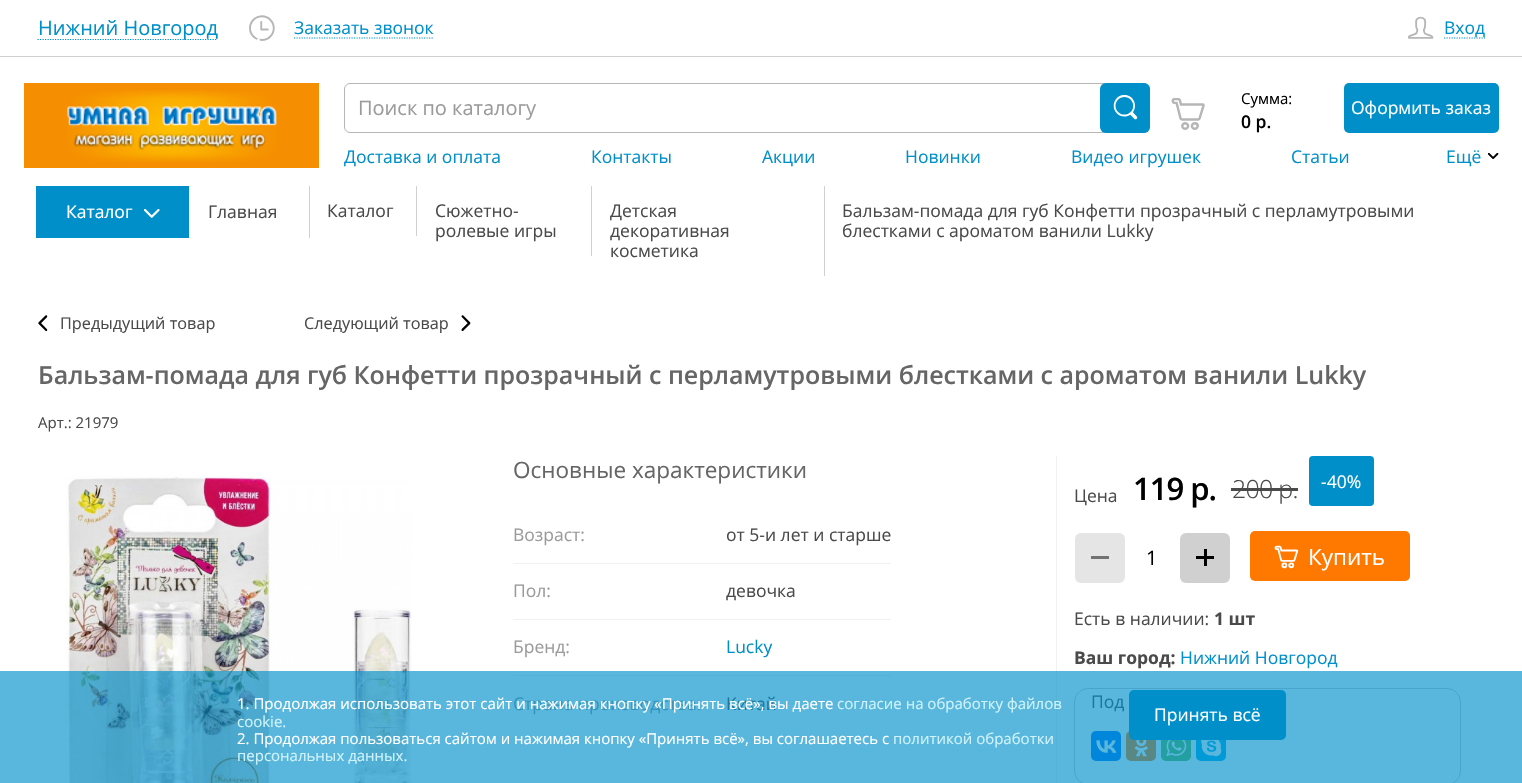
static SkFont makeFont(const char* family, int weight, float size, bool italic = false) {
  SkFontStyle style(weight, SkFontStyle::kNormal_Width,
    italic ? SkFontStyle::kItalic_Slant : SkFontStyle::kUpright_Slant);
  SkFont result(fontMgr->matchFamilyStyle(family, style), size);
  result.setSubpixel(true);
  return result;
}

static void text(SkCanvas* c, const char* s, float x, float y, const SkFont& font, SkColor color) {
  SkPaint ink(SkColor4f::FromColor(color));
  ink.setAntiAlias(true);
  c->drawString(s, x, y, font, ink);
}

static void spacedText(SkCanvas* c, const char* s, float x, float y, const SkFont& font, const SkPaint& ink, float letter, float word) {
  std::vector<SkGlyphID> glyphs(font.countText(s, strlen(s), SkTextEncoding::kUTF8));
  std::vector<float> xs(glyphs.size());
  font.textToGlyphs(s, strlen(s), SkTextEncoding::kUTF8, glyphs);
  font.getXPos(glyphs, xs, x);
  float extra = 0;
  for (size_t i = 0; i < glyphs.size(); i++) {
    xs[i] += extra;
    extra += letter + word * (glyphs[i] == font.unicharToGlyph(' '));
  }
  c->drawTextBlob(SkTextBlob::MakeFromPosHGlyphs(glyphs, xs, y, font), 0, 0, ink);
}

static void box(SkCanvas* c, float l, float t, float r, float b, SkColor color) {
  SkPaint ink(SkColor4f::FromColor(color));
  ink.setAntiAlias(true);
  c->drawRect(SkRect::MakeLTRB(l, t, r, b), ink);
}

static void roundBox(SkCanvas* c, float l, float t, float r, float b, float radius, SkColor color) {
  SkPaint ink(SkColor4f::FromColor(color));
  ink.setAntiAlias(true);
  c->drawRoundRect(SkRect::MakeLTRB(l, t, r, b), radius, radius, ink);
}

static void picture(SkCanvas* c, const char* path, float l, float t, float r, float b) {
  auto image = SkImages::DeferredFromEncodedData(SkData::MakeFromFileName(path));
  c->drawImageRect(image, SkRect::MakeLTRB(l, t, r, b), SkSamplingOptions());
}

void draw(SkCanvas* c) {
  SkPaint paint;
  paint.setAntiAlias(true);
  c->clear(0xffffffff);
  box(c, 0, 56, 1522, 57, 0xffd0d0d0);
  paint.setStyle(SkPaint::kStroke_Style);
  paint.setStrokeWidth(1.2f);
  paint.setColor(0xff008fc9);
  paint.setPathEffect(SkDashPathEffect::Make({{1.25f, 1.25f}}, 0));
  c->drawPath(SkPathBuilder().moveTo(37.5f, 39.5f).lineTo(217.5f, 39.5f).detach(), paint);
  paint.setPathEffect(nullptr);
  SkFont face1 = makeFont("Open Sans", 400, 20);
  text(c, "Нижний Новгород", 38, 35, face1, 0xff008fc9);
  picture(c, "img_01.png", 249, 15, 275, 41);
  paint.setPathEffect(SkDashPathEffect::Make({{1.25f, 1.25f}}, 0));
  c->drawPath(SkPathBuilder().moveTo(294, 38).lineTo(434, 38).detach(), paint);
  paint.setPathEffect(nullptr);
  SkFont face2 = makeFont("Open Sans", 400, 17.5f);
  text(c, "Заказать звонок", 294, 34, face2, 0xff008fc9);
  picture(c, "img_02.png", 1408, 16, 1434, 39);
  paint.setPathEffect(SkDashPathEffect::Make({{1.25f, 1.25f}}, 0));
  c->drawPath(SkPathBuilder().moveTo(1444, 38).lineTo(1485, 38).detach(), paint);
  paint.setPathEffect(nullptr);
  text(c, "Вход", 1444, 34, face2, 0xff008fc9);
  box(c, 24, 83, 319, 168, 0xfff58e00);
  picture(c, "img_03.png", 67, 90, 277, 162);
  paint.setStrokeWidth(1);
  paint.setColor(0xffb6b6b6);
  c->drawRoundRect(SkRect::MakeLTRB(344.5f, 83.5f, 1149.5f, 132.5f), 5.5f, 5.5f, paint);
  text(c, "Поиск по каталогу", 358, 115, face1, 0xff9b9b9b);
  roundBox(c, 1100, 83, 1150, 133, 6, 0xff008fc9);
  picture(c, "img_04.png", 1113, 95, 1138, 120);
  picture(c, "img_05.png", 1171, 98, 1205, 130);
  SkFont face3 = makeFont("Open Sans", 400, 15);
  text(c, "Сумма:", 1241, 104, face3, 0xff000000);
  SkFont face4 = makeFont("Open Sans", 600, 17.5f);
  text(c, "0 р.", 1241, 128, face4, 0xff000000);
  roundBox(c, 1344, 83, 1499, 133, 5, 0xff008fc9);
  text(c, "Оформить заказ", 1351, 114, face2, 0xffffffff);
  c->save();
  c->clipRect(SkRect::MakeLTRB(344, 145, 1499, 168));
  text(c, "Доставка и оплата", 344, 163, face2, 0xff008fc9);
  c->restore();
  text(c, "Контакты", 591, 163, face2, 0xff008fc9);
  text(c, "Акции", 762, 163, face2, 0xff008fc9);
  text(c, "Новинки", 905, 163, face2, 0xff008fc9);
  text(c, "Видео игрушек", 1071, 163, face2, 0xff008fc9);
  text(c, "Статьи", 1291, 163, face2, 0xff008fc9);
  text(c, "Ещё", 1446, 163, face2, 0xff008fc9);
  picture(c, "img_06.png", 1488, 153, 1499, 159);
  box(c, 36, 186, 189, 238, 0xff008fc9);
  text(c, "Каталог", 66, 218, face2, 0xffffffff);
  picture(c, "img_07.png", 144, 209, 160, 219);
  box(c, 309, 186, 310, 238, 0xffd0d0d0);
  text(c, "Главная", 208, 218, face2, 0xff4a4a4a);
  box(c, 416, 186, 417, 236, 0xffd0d0d0);
  text(c, "Каталог", 327, 217, face2, 0xff4a4a4a);
  box(c, 591, 186, 592, 256, 0xffd0d0d0);
  text(c, "Сюжетно-", 435, 217, face2, 0xff4a4a4a);
  text(c, "ролевые игры", 435, 237, face2, 0xff4a4a4a);
  box(c, 824, 186, 825, 276, 0xffd0d0d0);
  text(c, "Детская", 610, 217, face2, 0xff4a4a4a);
  text(c, "декоративная", 610, 237, face2, 0xff4a4a4a);
  text(c, "косметика", 610, 257, face2, 0xff4a4a4a);
  text(c, "Бальзам-помада для губ Конфетти прозрачный с перламутровыми", 842, 217, face2, 0xff4a4a4a);
  text(c, "блестками с ароматом ванили Lukky", 842, 237, face2, 0xff4a4a4a);
  picture(c, "img_08.png", 38, 315, 48, 331);
  SkFont face5 = makeFont("Open Sans", 400, 16.25f);
  text(c, "Предыдущий товар", 60, 329, face5, 0xff4a4a4a);
  text(c, "Следующий товар", 304, 329, face5, 0xff4a4a4a);
  picture(c, "img_09.png", 461, 315, 471, 331);
  SkFont face6 = makeFont("Open Sans", 600, 25);
  text(c, "Бальзам-помада для губ Конфетти прозрачный с перламутровыми блестками с ароматом ванили Lukky", 38, 384, face6, 0xff666666);
  text(c, "Арт.: 21979", 38, 428, face3, 0xff4a4a4a);
  picture(c, "img_10.png", 65, 475, 412, 783);
  SkFont face7 = makeFont("Open Sans", 400, 22.5f);
  text(c, "Основные характеристики", 513, 478, face7, 0xff666666);
  text(c, "Возраст:", 513, 541, face2, 0xff9b9b9b);
  box(c, 513, 563, 891, 564, 0xfff3f1ed);
  text(c, "от 5-и лет и старше", 726, 541, face2, 0xff4a4a4a);
  text(c, "Пол:", 513, 597, face2, 0xff9b9b9b);
  box(c, 513, 619, 891, 620, 0xfff3f1ed);
  text(c, "девочка", 726, 597, face2, 0xff4a4a4a);
  text(c, "Бренд:", 513, 653, face2, 0xff9b9b9b);
  box(c, 513, 675, 891, 676, 0xfff3f1ed);
  text(c, "Lucky", 726, 653, face2, 0xff008fc9);
  text(c, "Страна производства:", 513, 710, face2, 0xff9b9b9b);
  text(c, "Китай", 726, 710, face2, 0xff4a4a4a);
  box(c, 1056, 456, 1057, 783, 0xfff3f1ed);
  text(c, "Цена", 1074, 502, face2, 0xff4a4a4a);
  SkFont face8 = makeFont("Open Sans", 600, 31);
  paint.setStyle(SkPaint::kFill_Style);
  paint.setColor(0xff000000);
  spacedText(c, "119 р.", 1133, 500, face8, paint, -1, 0);
  SkFont face9 = makeFont("Open Sans", 300, 25);
  paint.setColor(0xff4a4a4a);
  spacedText(c, "200 р.", 1232, 498, face9, paint, -0.75f, 0);
  box(c, 1231, 488, 1298, 491, 0xff4a4a4a);
  roundBox(c, 1309, 456, 1374, 506, 4, 0xff008fc9);
  text(c, "-40%", 1321, 488, face2, 0xffffffff);
  roundBox(c, 1075, 533, 1125, 583, 6, 0xffe5e5e5);
  box(c, 1091, 556, 1109, 559, 0xff737373);
  text(c, "1", 1146, 565, face1, 0xff000000);
  roundBox(c, 1180, 533, 1230, 583, 6, 0xffd0d0d0);
  box(c, 1204, 549, 1207, 566, 0xff000000);
  box(c, 1196, 556, 1214, 559, 0xff000000);
  roundBox(c, 1250, 531, 1410, 581, 5, 0xffff7800);
  picture(c, "img_11.png", 1274, 545, 1299, 569);
  text(c, "Купить", 1308, 565, face7, 0xffffffff);
  text(c, "Есть в наличии:", 1074, 625, face2, 0xff4a4a4a);
  SkFont face10 = makeFont("Open Sans", 700, 17.5f);
  text(c, "1 шт", 1214, 625, face10, 0xff4a4a4a);
  text(c, "Ваш город:", 1074, 664, face10, 0xff4a4a4a);
  text(c, "Нижний Новгород", 1180, 664, face2, 0xff008fc9);
  paint.setStyle(SkPaint::kStroke_Style);
  paint.setColor(0xffcccccc);
  c->drawRoundRect(SkRect::MakeLTRB(1074.5f, 688.5f, 1460.5f, 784.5f), 13.5f, 13.5f, paint);
  text(c, "Под", 1091, 708, face2, 0xff4a4a4a);
  roundBox(c, 1091, 731, 1121, 761, 5, 0xff0077ff);
  picture(c, "img_12.png", 1096, 740, 1117, 753);
  roundBox(c, 1126, 731, 1156, 761, 5, 0xffff7700);
  picture(c, "img_13.png", 1134, 740, 1148, 757);
  roundBox(c, 1161, 731, 1191, 761, 5, 0xff65bc54);
  picture(c, "img_14.png", 1166, 740, 1187, 757);
  roundBox(c, 1196, 731, 1226, 761, 5, 0xff00aff0);
  picture(c, "img_15.png", 1201, 740, 1222, 757);
  box(c, 0, 671, 1522, 783, 0xa6008fc9);
  text(c, "1. Продолжая использовать этот сайт и нажимая кнопку «Принять всё», вы даете", 237, 709, face3, 0xffffffff);
  text(c, "согласие на обработку файлов", 837, 709, face3, 0xffcef3fa);
  text(c, "cookie.", 237, 727, face3, 0xffcef3fa);
  text(c, "2. Продолжая пользоваться сайтом и нажимая кнопку «Принять всё», вы соглашаетесь с", 237, 744, face3, 0xffffffff);
  text(c, "политикой обработки", 893, 744, face3, 0xffcef3fa);
  text(c, "персональных данных.", 237, 761, face3, 0xffcef3fa);
  roundBox(c, 1129, 690, 1286, 740, 5, 0xff008fc9);
  text(c, "Принять всё", 1154, 721, face2, 0xffffffff);
}
